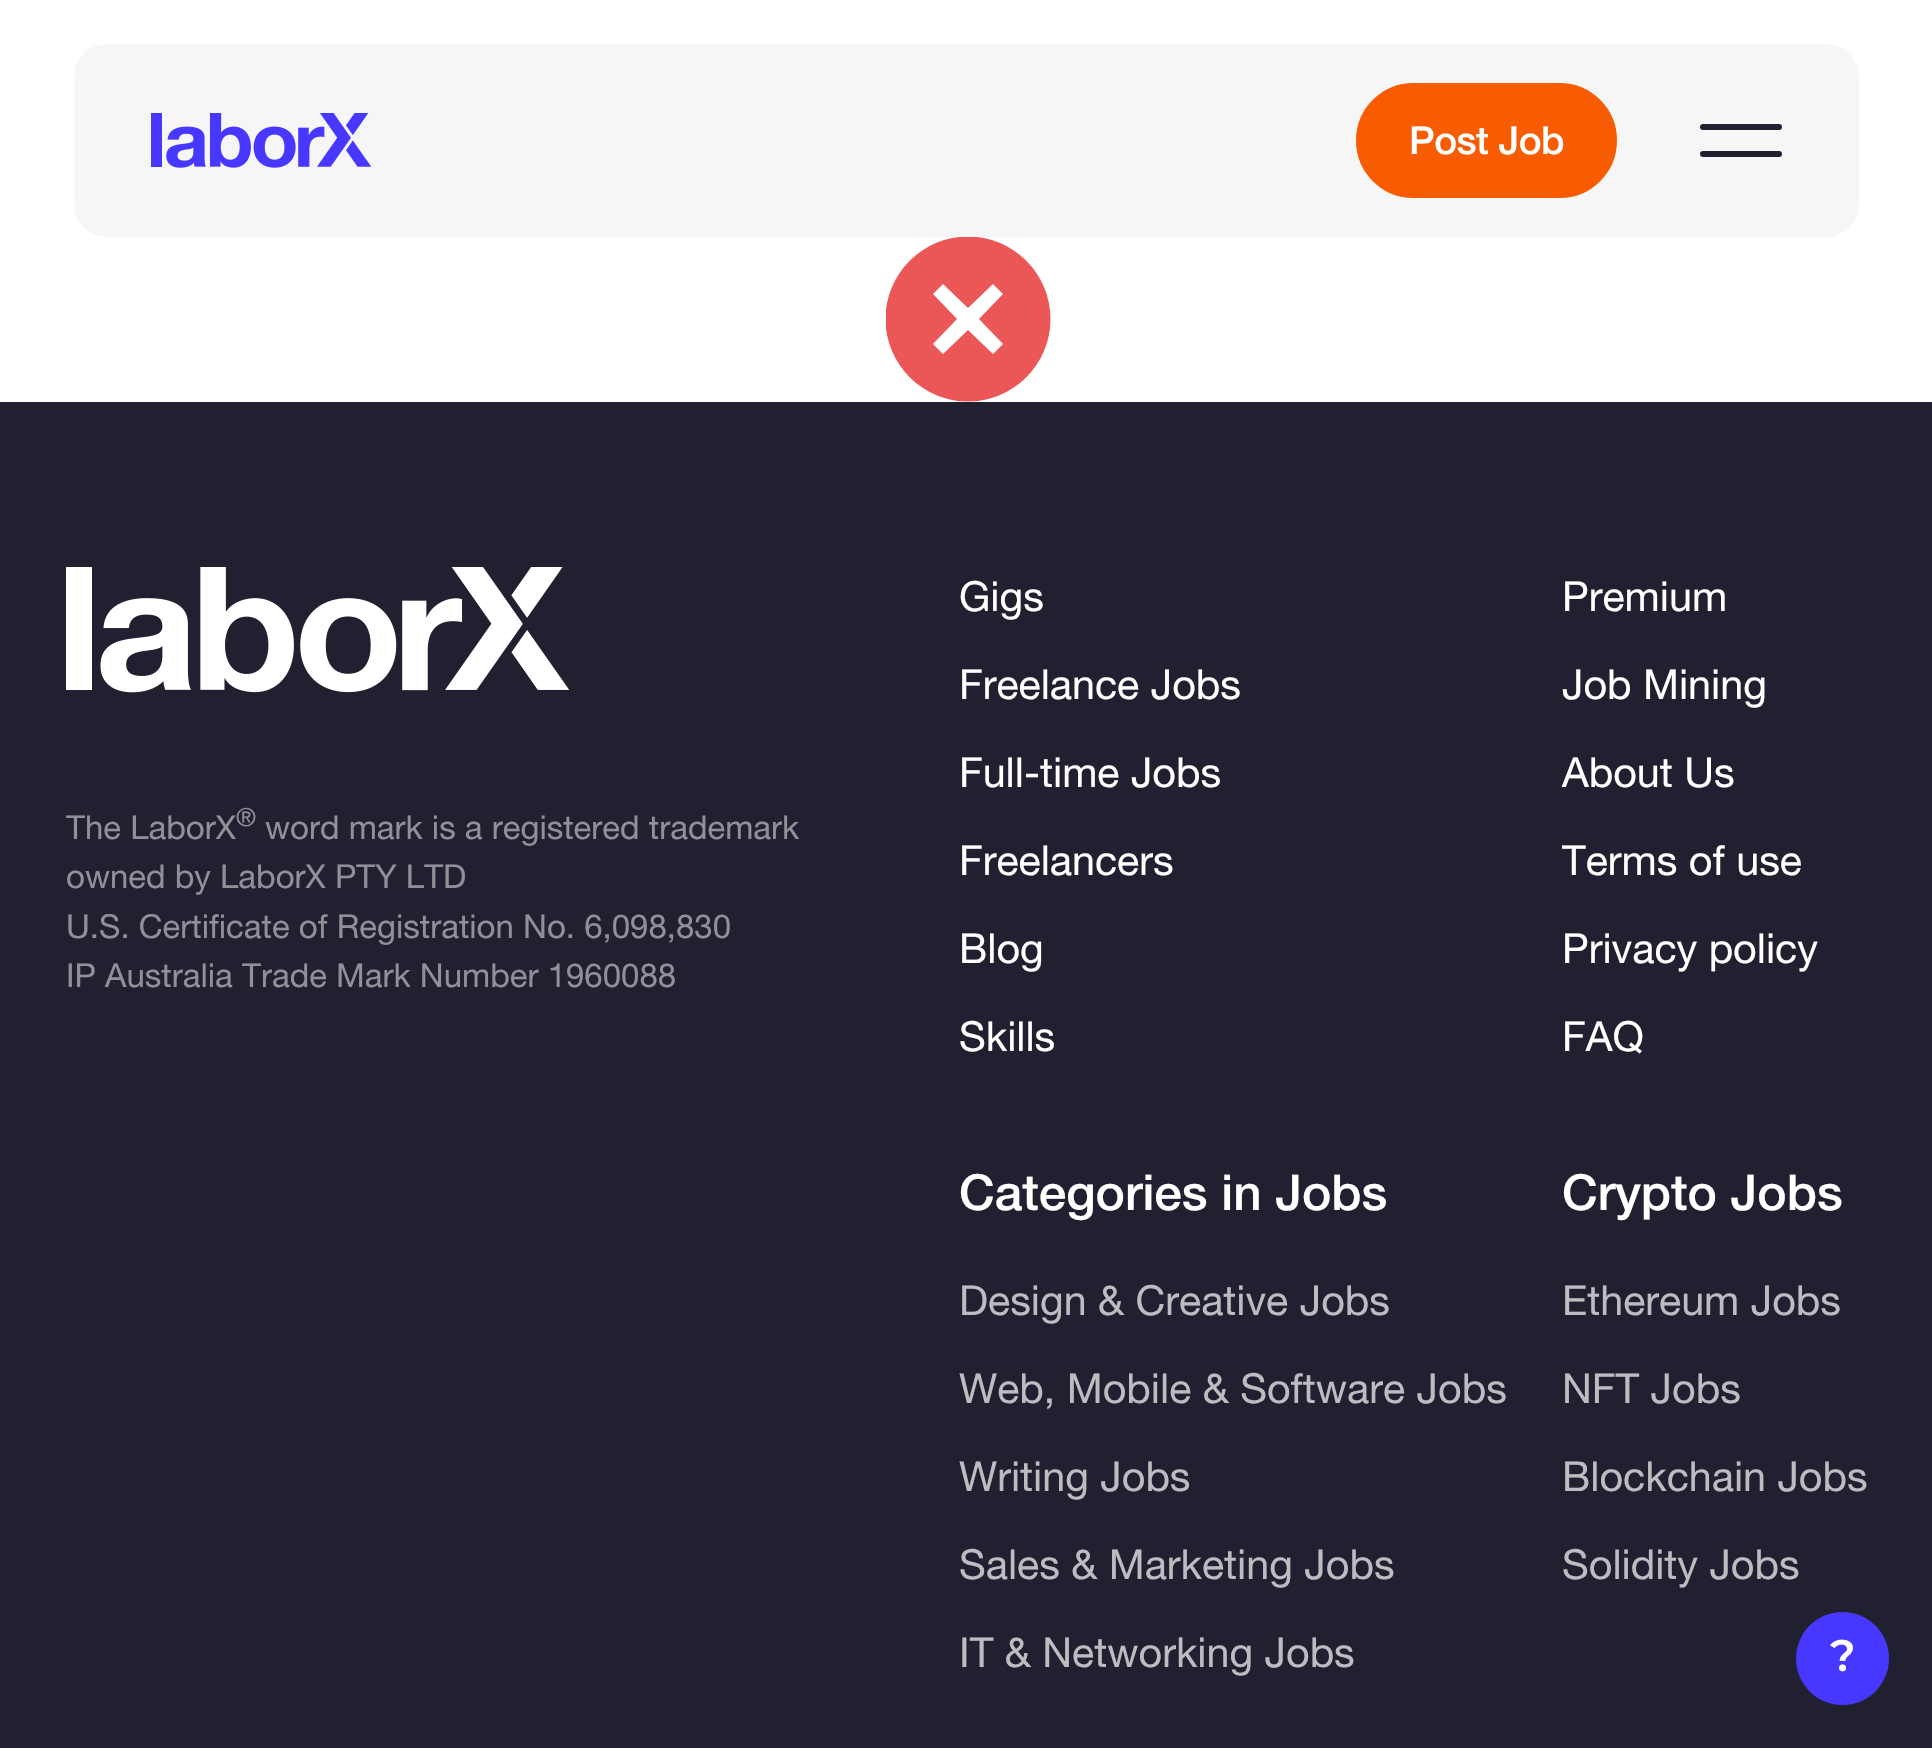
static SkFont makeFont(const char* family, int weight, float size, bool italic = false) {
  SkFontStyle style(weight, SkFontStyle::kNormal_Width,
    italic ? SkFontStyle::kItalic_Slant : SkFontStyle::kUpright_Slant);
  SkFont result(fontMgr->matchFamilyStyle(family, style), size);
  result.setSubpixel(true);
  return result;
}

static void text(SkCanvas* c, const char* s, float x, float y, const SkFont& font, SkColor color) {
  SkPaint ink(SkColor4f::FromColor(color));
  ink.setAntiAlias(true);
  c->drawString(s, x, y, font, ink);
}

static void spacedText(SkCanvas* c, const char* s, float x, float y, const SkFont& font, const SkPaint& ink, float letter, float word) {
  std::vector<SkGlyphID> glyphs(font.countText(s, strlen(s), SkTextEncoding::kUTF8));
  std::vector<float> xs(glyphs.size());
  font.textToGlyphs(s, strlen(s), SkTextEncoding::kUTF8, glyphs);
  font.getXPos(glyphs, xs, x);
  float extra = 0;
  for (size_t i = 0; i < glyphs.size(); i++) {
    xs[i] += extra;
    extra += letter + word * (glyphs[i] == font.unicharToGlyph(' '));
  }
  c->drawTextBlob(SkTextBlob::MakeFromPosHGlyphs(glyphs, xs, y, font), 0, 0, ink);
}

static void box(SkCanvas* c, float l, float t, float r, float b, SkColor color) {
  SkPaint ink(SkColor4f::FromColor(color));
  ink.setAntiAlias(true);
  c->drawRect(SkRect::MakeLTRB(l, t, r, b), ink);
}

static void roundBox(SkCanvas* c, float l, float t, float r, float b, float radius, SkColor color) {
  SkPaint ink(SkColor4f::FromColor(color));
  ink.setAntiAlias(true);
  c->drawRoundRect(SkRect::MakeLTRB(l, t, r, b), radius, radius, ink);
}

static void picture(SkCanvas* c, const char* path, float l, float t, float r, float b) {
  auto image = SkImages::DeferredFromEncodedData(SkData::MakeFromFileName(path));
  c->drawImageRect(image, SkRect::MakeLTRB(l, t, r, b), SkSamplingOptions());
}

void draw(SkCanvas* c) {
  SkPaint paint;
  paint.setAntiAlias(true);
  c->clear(0xffffffff);
  roundBox(c, 74, 44, 1859, 237, 33, 0xfff6f6f7);
  picture(c, "img_01.png", 151, 113, 371, 168);
  paint.setColor(0xfff75c03);
  c->drawRoundRect(SkRect::MakeLTRB(1357.5f, 84.5f, 1615.5f, 196.5f), 56, 56, paint);
  paint.setStyle(SkPaint::kStroke_Style);
  paint.setStrokeWidth(3);
  c->drawRoundRect(SkRect::MakeLTRB(1357.5f, 84.5f, 1615.5f, 196.5f), 56, 56, paint);
  SkFont face1 = makeFont("Helvetica Neue", 500, 38.5f);
  paint.setStyle(SkPaint::kFill_Style);
  paint.setColor(0xffffffff);
  spacedText(c, "Post Job", 1409, 154, face1, paint, -0.5f, 0);
  roundBox(c, 1700, 124, 1782, 130, 3, 0xff202030);
  roundBox(c, 1700, 151, 1782, 157, 3, 0xff202030);
  c->save();
  c->clipRect(SkRect::MakeLTRB(886, 237, 1051, 402));
  paint.setColor(0xffeb5757);
  c->drawCircle(968, 319, 82.5f, paint);
  c->restore();
  paint.setColor(0xffffffff);
  c->drawPath(SkPathBuilder(SkPathFillType::kEvenOdd).moveTo(968, 330).lineTo(943, 354).lineTo(933, 344).lineTo(957, 319).lineTo(933, 294).lineTo(943, 284).lineTo(968, 308).lineTo(993, 284).lineTo(1003, 294).lineTo(979, 319).lineTo(1003, 344).lineTo(993, 354).close().detach(), paint);
  box(c, 0, 402, 1932, 1748, 0xff202030);
  picture(c, "img_02.png", 66, 567, 569, 693);
  SkFont face2 = makeFont("Helvetica Neue", 400, 33);
  text(c, "The LaborX", 66, 839, face2, 0xff909098);
  SkFont face3 = makeFont("Helvetica Neue", 400, 25);
  text(c, "®", 236, 826, face3, 0xff909098);
  text(c, "word mark is a registered trademark", 265, 839, face2, 0xff909098);
  text(c, "owned by LaborX PTY LTD", 66, 888, face2, 0xff909098);
  text(c, "U.S. Certificate of Registration No. 6,098,830", 66, 938, face2, 0xff909098);
  text(c, "IP Australia Trade Mark Number 1960088", 66, 987, face2, 0xff909098);
  SkFont face4 = makeFont("Helvetica Neue", 400, 41.25f);
  text(c, "Gigs", 959, 611, face4, 0xffffffff);
  text(c, "Freelance Jobs", 959, 699, face4, 0xffffffff);
  text(c, "Full-time Jobs", 959, 787, face4, 0xffffffff);
  text(c, "Freelancers", 959, 875, face4, 0xffffffff);
  text(c, "Blog", 959, 963, face4, 0xffffffff);
  text(c, "Skills", 959, 1051, face4, 0xffffffff);
  SkFont face5 = makeFont("Helvetica Neue", 500, 49.5f);
  text(c, "Categories in Jobs", 959, 1210, face5, 0xffffffff);
  text(c, "Design & Creative Jobs", 959, 1315, face4, 0xffbcbcc1);
  text(c, "Web, Mobile & Software Jobs", 959, 1403, face4, 0xffbcbcc1);
  text(c, "Writing Jobs", 959, 1491, face4, 0xffbcbcc1);
  text(c, "Sales & Marketing Jobs", 959, 1579, face4, 0xffbcbcc1);
  text(c, "IT & Networking Jobs", 959, 1667, face4, 0xffbcbcc1);
  text(c, "Premium", 1562, 611, face4, 0xffffffff);
  text(c, "Job Mining", 1562, 699, face4, 0xffffffff);
  text(c, "About Us", 1562, 787, face4, 0xffffffff);
  text(c, "Terms of use", 1562, 875, face4, 0xffffffff);
  text(c, "Privacy policy", 1562, 963, face4, 0xffffffff);
  text(c, "FAQ", 1562, 1051, face4, 0xffffffff);
  text(c, "Crypto Jobs", 1562, 1210, face5, 0xffffffff);
  text(c, "Ethereum Jobs", 1562, 1315, face4, 0xffbcbcc1);
  text(c, "NFT Jobs", 1562, 1403, face4, 0xffbcbcc1);
  text(c, "Blockchain Jobs", 1562, 1491, face4, 0xffbcbcc1);
  text(c, "Solidity Jobs", 1562, 1579, face4, 0xffbcbcc1);
  paint.setColor(0xff4737ff);
  c->drawCircle(1842.5f, 1658.5f, 46.5f, paint);
  SkFont face6 = makeFont("Montserrat", 600, 44);
  text(c, "?", 1830, 1671, face6, 0xffffffff);
}
